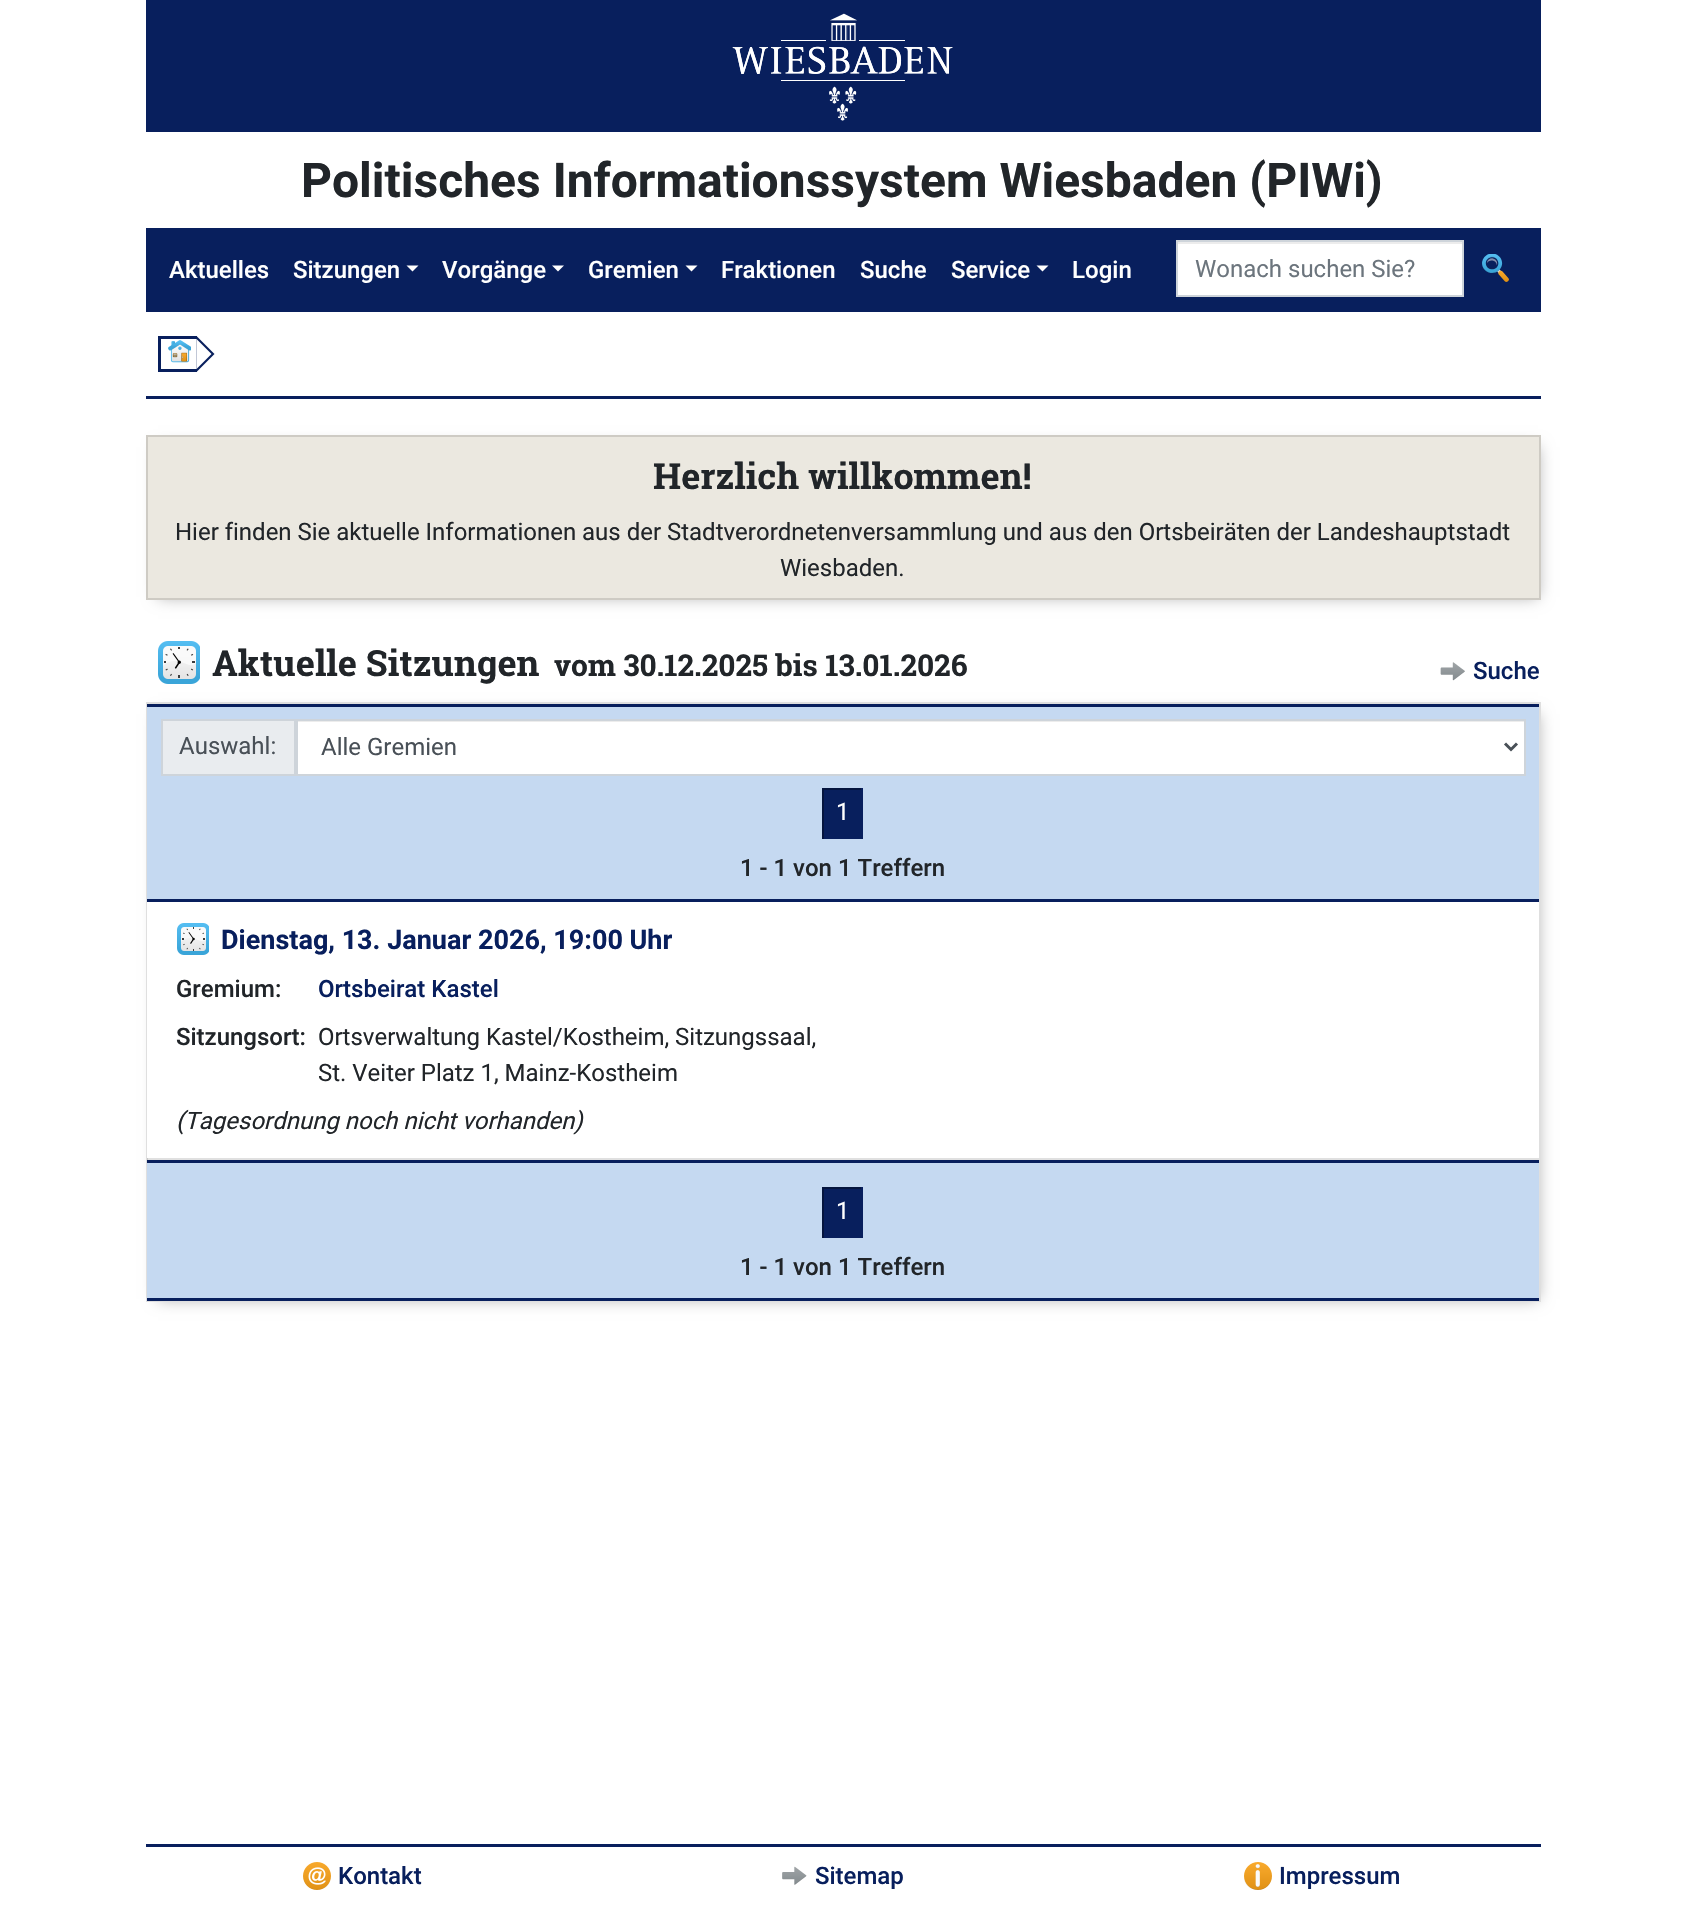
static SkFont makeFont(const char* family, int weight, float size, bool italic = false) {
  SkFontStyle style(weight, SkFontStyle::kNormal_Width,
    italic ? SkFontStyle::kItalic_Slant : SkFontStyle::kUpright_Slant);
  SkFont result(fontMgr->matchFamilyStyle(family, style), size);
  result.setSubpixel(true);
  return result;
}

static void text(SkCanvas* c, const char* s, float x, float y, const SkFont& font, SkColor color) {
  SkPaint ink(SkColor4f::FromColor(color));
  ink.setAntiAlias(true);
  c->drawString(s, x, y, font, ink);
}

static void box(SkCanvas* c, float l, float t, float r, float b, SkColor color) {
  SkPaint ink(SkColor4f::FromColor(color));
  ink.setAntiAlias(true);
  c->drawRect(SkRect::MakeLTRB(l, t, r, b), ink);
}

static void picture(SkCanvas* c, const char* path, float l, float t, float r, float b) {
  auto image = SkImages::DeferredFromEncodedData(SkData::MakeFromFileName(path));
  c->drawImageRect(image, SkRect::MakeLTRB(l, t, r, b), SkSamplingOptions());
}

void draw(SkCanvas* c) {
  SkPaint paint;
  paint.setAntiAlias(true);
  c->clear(0xffffffff);
  box(c, 146, 0, 1541, 132, 0xff081f5d);
  picture(c, "img_01.png", 732, 13, 953, 121);
  SkFont face1 = makeFont("Roboto", 700, 48);
  text(c, "Politisches Informationssystem Wiesbaden (PIWi)", 301, 197, face1, 0xff212529);
  box(c, 146, 228, 1541, 312, 0xff081f5d);
  SkFont face2 = makeFont("Roboto", 500, 24);
  text(c, "Aktuelles", 169, 278, face2, 0xffffffff);
  text(c, "Sitzungen", 293, 278, face2, 0xffffffff);
  paint.setColor(0xffffffff);
  c->drawPath(SkPathBuilder().moveTo(406.5f, 265.5f).lineTo(418.5f, 265.5f).lineTo(412.5f, 271.5f).close().detach(), paint);
  text(c, "Vorgänge", 442, 278, face2, 0xffffffff);
  c->drawPath(SkPathBuilder().moveTo(552, 265.5f).lineTo(564, 265.5f).lineTo(558, 271.5f).close().detach(), paint);
  text(c, "Gremien", 588, 278, face2, 0xffffffff);
  c->drawPath(SkPathBuilder().moveTo(685.5f, 265.5f).lineTo(697.5f, 265.5f).lineTo(691.5f, 271.5f).close().detach(), paint);
  text(c, "Fraktionen", 721, 278, face2, 0xffffffff);
  text(c, "Suche", 860, 278, face2, 0xffffffff);
  text(c, "Service", 951, 278, face2, 0xffffffff);
  c->drawPath(SkPathBuilder().moveTo(1036.5f, 265.5f).lineTo(1048.5f, 265.5f).lineTo(1042.5f, 271.5f).close().detach(), paint);
  text(c, "Login", 1072, 278, face2, 0xffffffff);
  box(c, 1178, 244, 1462, 295, 0xffffffff);
  box(c, 1178, 242, 1463, 244, 0xffececec);
  paint.setStyle(SkPaint::kStroke_Style);
  paint.setStrokeWidth(2);
  paint.setColor(0xffced4da);
  c->drawRect(SkRect::MakeLTRB(1177, 241, 1463, 296), paint);
  SkFont face3 = makeFont("Roboto", 400, 24);
  text(c, "Wonach suchen Sie?", 1195, 277, face3, 0xff6c757d);
  picture(c, "img_02.png", 1482, 254, 1509, 282);
  box(c, 158, 336, 197, 339, 0xff081f5d);
  box(c, 158, 369, 197, 372, 0xff081f5d);
  box(c, 158, 336, 161, 372, 0xff081f5d);
  paint.setStyle(SkPaint::kFill_Style);
  paint.setColor(0xff081f5d);
  c->drawPath(SkPathBuilder().moveTo(196.5f, 372).lineTo(196.5f, 336).lineTo(214.5f, 354).close().detach(), paint);
  picture(c, "img_03.png", 168, 340, 191, 363);
  paint.setColor(0xffffffff);
  c->drawPath(SkPathBuilder().moveTo(196.5f, 369).lineTo(196.5f, 339).lineTo(211.5f, 354).close().detach(), paint);
  box(c, 146, 396, 1541, 399, 0xff081f5d);
  paint.setColor(0xffaaaaaa);
  paint.setMaskFilter(SkMaskFilter::MakeBlur(kNormal_SkBlurStyle, 7.5f));
  c->drawRect(SkRect::MakeLTRB(158, 447, 1538, 597), paint);
  paint.setMaskFilter(nullptr);
  paint.setColor(0xffebe8e0);
  c->drawRect(SkRect::MakeLTRB(147, 436, 1540, 599), paint);
  paint.setStyle(SkPaint::kStroke_Style);
  paint.setColor(0xffcecbc4);
  c->drawRect(SkRect::MakeLTRB(147, 436, 1540, 599), paint);
  SkFont face4 = makeFont("Roboto Slab", 700, 36);
  text(c, "Herzlich willkommen!", 653, 489, face4, 0xff212529);
  text(c, "Hier finden Sie aktuelle Informationen aus der Stadtverordnetenversammlung und aus den Ortsbeiräten der Landeshauptstadt", 175, 540, face3, 0xff212529);
  text(c, "Wiesbaden.", 780, 576, face3, 0xff212529);
  picture(c, "img_04.png", 158, 641, 200, 684);
  text(c, "Aktuelle Sitzungen", 212, 676, face4, 0xff212529);
  SkFont face5 = makeFont("Roboto Slab", 700, 30);
  text(c, "vom 30.12.2025 bis 13.01.2026", 554, 676, face5, 0xff212529);
  picture(c, "img_05.png", 1440, 662, 1465, 681);
  text(c, "Suche", 1473, 679, face2, 0xff081f5d);
  paint.setStyle(SkPaint::kFill_Style);
  paint.setColor(0xffaaaaaa);
  paint.setMaskFilter(SkMaskFilter::MakeBlur(kNormal_SkBlurStyle, 7.5f));
  c->drawRect(SkRect::MakeLTRB(158, 714, 1538, 1299), paint);
  paint.setMaskFilter(nullptr);
  box(c, 148, 1158, 1539, 1160, 0xffffffff);
  paint.setStyle(SkPaint::kStroke_Style);
  paint.setColor(0xffdfdfdf);
  c->drawRect(SkRect::MakeLTRB(147, 703, 1540, 1301), paint);
  box(c, 147, 707, 1539, 899, 0xffc5d9f1);
  box(c, 147, 704, 1539, 707, 0xff081f5d);
  box(c, 147, 899, 1539, 902, 0xff081f5d);
  paint.setStyle(SkPaint::kFill_Style);
  paint.setColor(0xffe9ecef);
  c->drawRect(SkRect::MakeLTRB(162, 720, 295, 775), paint);
  paint.setStyle(SkPaint::kStroke_Style);
  paint.setColor(0xffced4da);
  c->drawRect(SkRect::MakeLTRB(162, 720, 295, 775), paint);
  text(c, "Auswahl:", 179, 754, face3, 0xff495057);
  box(c, 298, 722, 1524, 774, 0xffffffff);
  box(c, 297, 721, 1524, 722, 0xffececec);
  c->drawRect(SkRect::MakeLTRB(297, 720, 1525, 775), paint);
  paint.setStrokeWidth(3);
  paint.setColor(0xff495057);
  c->drawPath(SkPathBuilder().moveTo(1505, 743.5f).lineTo(1511, 749.5f).lineTo(1517, 743.5f).detach(), paint);
  text(c, "Alle Gremien", 321, 755, face3, 0xff495057);
  box(c, 824, 790, 861, 839, 0xff081f5d);
  box(c, 822, 788, 863, 790, 0xff05153e);
  box(c, 861, 788, 863, 839, 0xff081f5d);
  box(c, 822, 788, 824, 839, 0xff05153e);
  text(c, "1", 836, 820, face3, 0xffffffff);
  text(c, "1 - 1 von 1 Treffern", 740, 876, face2, 0xff212529);
  box(c, 147, 1158, 1539, 1160, 0x1f000000);
  box(c, 147, 902, 1539, 1158, 0xffffffff);
  picture(c, "img_06.png", 177, 923, 209, 955);
  SkFont face6 = makeFont("Roboto", 700, 27);
  text(c, "Dienstag, 13. Januar 2026, 19:00 Uhr", 221, 949, face6, 0xff081f5d);
  text(c, "Gremium:", 176, 997, face2, 0xff212529);
  text(c, "Ortsbeirat Kastel", 318, 997, face2, 0xff081f5d);
  text(c, "Sitzungsort:", 176, 1045, face2, 0xff212529);
  text(c, "Ortsverwaltung Kastel/Kostheim, Sitzungssaal,", 318, 1045, face3, 0xff212529);
  text(c, "St. Veiter Platz 1, Mainz-Kostheim", 318, 1081, face3, 0xff212529);
  SkFont face7 = makeFont("Roboto", 400, 24, true);
  text(c, "(Tagesordnung noch nicht vorhanden)", 176, 1129, face7, 0xff212529);
  box(c, 147, 1163, 1539, 1298, 0xffc5d9f1);
  box(c, 147, 1160, 1539, 1163, 0xff081f5d);
  box(c, 147, 1298, 1539, 1301, 0xff081f5d);
  box(c, 824, 1189, 861, 1238, 0xff081f5d);
  box(c, 822, 1187, 863, 1189, 0xff05153e);
  box(c, 861, 1187, 863, 1238, 0xff081f5d);
  box(c, 822, 1187, 824, 1238, 0xff05153e);
  text(c, "1", 836, 1219, face3, 0xffffffff);
  text(c, "1 - 1 von 1 Treffern", 740, 1275, face2, 0xff212529);
  box(c, 146, 1844, 1541, 1847, 0xff081f5d);
  picture(c, "img_07.png", 303, 1862, 331, 1890);
  text(c, "Kontakt", 338, 1884, face2, 0xff081f5d);
  picture(c, "img_08.png", 782, 1866, 807, 1885);
  text(c, "Sitemap", 815, 1884, face2, 0xff081f5d);
  picture(c, "img_09.png", 1244, 1862, 1272, 1890);
  text(c, "Impressum", 1279, 1884, face2, 0xff081f5d);
}
